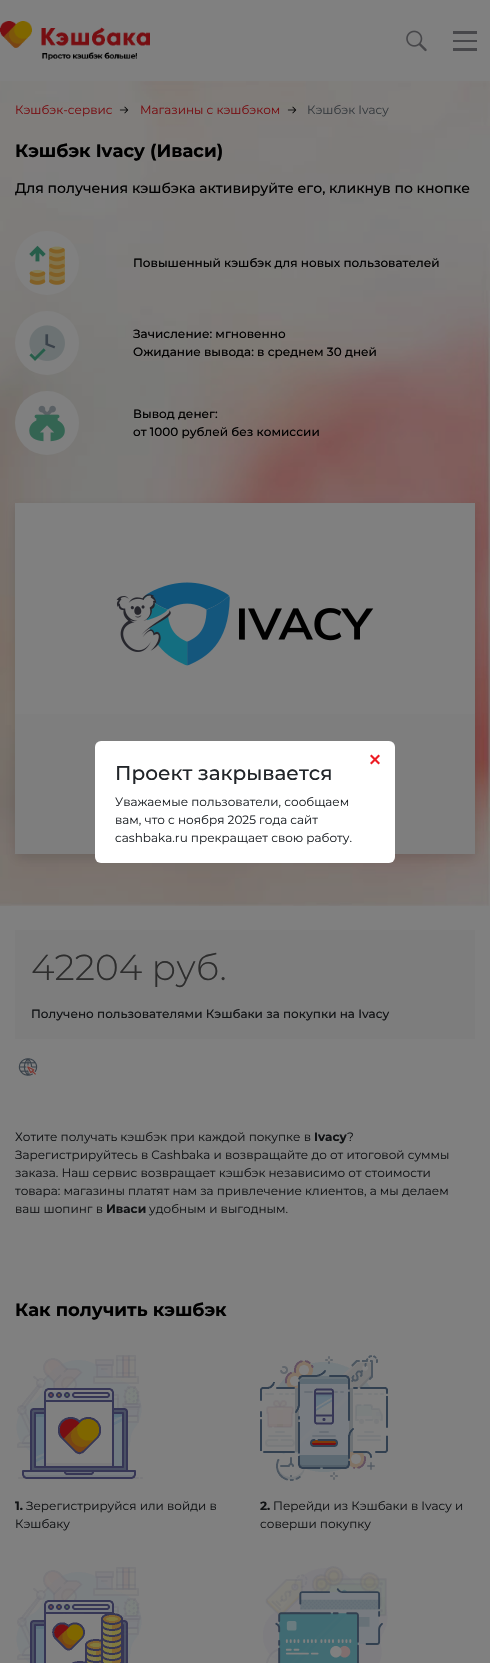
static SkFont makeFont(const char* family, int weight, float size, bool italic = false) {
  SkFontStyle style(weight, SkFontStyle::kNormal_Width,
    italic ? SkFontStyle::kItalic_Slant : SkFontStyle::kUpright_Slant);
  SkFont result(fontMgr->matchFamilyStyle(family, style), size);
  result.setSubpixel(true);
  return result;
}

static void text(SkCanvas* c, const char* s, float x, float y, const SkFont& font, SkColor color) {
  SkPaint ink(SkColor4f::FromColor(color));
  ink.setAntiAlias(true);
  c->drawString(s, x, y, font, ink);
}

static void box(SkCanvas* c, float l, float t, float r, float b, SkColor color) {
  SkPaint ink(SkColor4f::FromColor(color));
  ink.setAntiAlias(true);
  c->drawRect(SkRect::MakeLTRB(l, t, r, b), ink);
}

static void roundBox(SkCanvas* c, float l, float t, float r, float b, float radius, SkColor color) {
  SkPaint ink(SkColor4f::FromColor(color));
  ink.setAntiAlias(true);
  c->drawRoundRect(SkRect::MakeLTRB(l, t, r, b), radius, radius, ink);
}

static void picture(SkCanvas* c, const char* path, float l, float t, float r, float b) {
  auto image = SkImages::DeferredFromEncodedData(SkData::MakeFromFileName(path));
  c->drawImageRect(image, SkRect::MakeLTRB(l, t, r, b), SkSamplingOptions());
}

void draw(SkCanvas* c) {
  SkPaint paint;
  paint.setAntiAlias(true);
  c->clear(0xff808080);
  picture(c, "img_01.png", 0, 21, 150, 60);
  picture(c, "img_02.png", 406, 30, 427, 52);
  box(c, 453, 31, 477, 34, 0xff47474a);
  box(c, 453, 40, 477, 42, 0xff47474a);
  box(c, 453, 48, 477, 51, 0xff47474a);
  picture(c, "img_05.png", 0, 81, 490, 906);
  SkFont face1 = makeFont("Montserrat", 400, 12);
  text(c, "Кэшбэк-сервис", 15, 114, face1, 0xff770e12);
  picture(c, "img_03.png", 119, 106, 129, 114);
  text(c, "Магазины с кэшбэком", 140, 114, face1, 0xff770e12);
  picture(c, "img_04.png", 287, 106, 297, 114);
  text(c, "Кэшбэк Ivacy", 307, 114, face1, 0xff363b3f);
  SkFont face2 = makeFont("Montserrat", 700, 18);
  text(c, "Кэшбэк Ivacy (Иваси)", 15, 157, face2, 0xff000000);
  SkFont face3 = makeFont("Montserrat", 500, 14);
  text(c, "Для получения кэшбэка активируйте его, кликнув по кнопке", 15, 193, face3, 0xff000000);
  paint.setColor(0xff808080);
  c->drawCircle(47, 263, 32, paint);
  picture(c, "img_06.png", 29, 245, 65, 285);
  SkFont face4 = makeFont("Montserrat", 500, 12);
  text(c, "Повышенный кэшбэк для новых пользователей", 133, 267, face4, 0xff000000);
  c->drawCircle(47, 343, 32, paint);
  picture(c, "img_07.png", 29, 325, 65, 361);
  text(c, "Зачисление: мгновенно", 133, 338, face4, 0xff000000);
  text(c, "Ожидание вывода: в среднем 30 дней", 133, 356, face4, 0xff000000);
  c->drawCircle(47, 423, 32, paint);
  picture(c, "img_08.png", 29, 405, 65, 442);
  text(c, "Вывод денег:", 133, 418, face4, 0xff000000);
  text(c, "от 1000 рублей без комиссии", 133, 436, face4, 0xff000000);
  paint.setColor(0x1a000000);
  paint.setMaskFilter(SkMaskFilter::MakeBlur(kNormal_SkBlurStyle, 5));
  c->drawRect(SkRect::MakeLTRB(15, 507, 475, 858), paint);
  paint.setMaskFilter(nullptr);
  box(c, 15, 503, 475, 714, 0xff808080);
  picture(c, "img_09.png", 116, 582, 374, 666);
  box(c, 15, 714, 475, 854, 0xff7e7e7e);
  roundBox(c, 95, 741, 395, 863, 6, 0xffffffff);
  paint.setColor(0xffed1c24);
  c->drawPath(SkPathBuilder().moveTo(371.5f, 754.5f).lineTo(380, 763).lineTo(378.5f, 764.5f).lineTo(370, 756).close().detach(), paint);
  c->drawPath(SkPathBuilder().moveTo(370, 763).lineTo(378.5f, 754.5f).lineTo(380, 756).lineTo(371.5f, 764.5f).close().detach(), paint);
  SkFont face5 = makeFont("Montserrat", 500, 20);
  text(c, "Проект закрывается", 115, 780, face5, 0xff212529);
  text(c, "Уважаемые пользователи, сообщаем", 115, 806, face1, 0xff212529);
  text(c, "вам, что с ноября 2025 года сайт", 115, 824, face1, 0xff212529);
  text(c, "cashbaka.ru прекращает свою работу.", 115, 842, face1, 0xff212529);
  box(c, 15, 930, 475, 1039, 0xff7d7d7d);
  SkFont face6 = makeFont("Montserrat", 300, 36);
  text(c, "42204 руб.", 31, 980, face6, 0xff2d2d2d);
  text(c, "Получено пользователями Кэшбаки за покупки на Ivacy", 31, 1018, face4, 0xff111315);
  picture(c, "img_10.png", 18, 1058, 38, 1076);
  text(c, "Хотите получать кэшбэк при каждой покупке в", 15, 1141, face1, 0xff111315);
  SkFont face7 = makeFont("Montserrat", 700, 12);
  text(c, "Ivacy", 314, 1141, face7, 0xff111315);
  text(c, "?", 347, 1141, face1, 0xff111315);
  text(c, "Зарегистрируйтесь в Cashbaka и возвращайте до от итоговой суммы", 15, 1159, face1, 0xff111315);
  text(c, "заказа. Наш сервис возвращает кэшбэк независимо от стоимости", 15, 1177, face1, 0xff111315);
  text(c, "товара: магазины платят нам за привлечение клиентов, а мы делаем", 15, 1195, face1, 0xff111315);
  text(c, "ваш шопинг в", 15, 1213, face1, 0xff111315);
  text(c, "Иваси", 106, 1213, face7, 0xff111315);
  text(c, "удобным и выгодным.", 149, 1213, face1, 0xff111315);
  text(c, "Как получить кэшбэк", 15, 1316, face2, 0xff000000);
  picture(c, "img_11.png", 16, 1355, 143, 1479);
  text(c, "1.", 15, 1510, face7, 0xff111315);
  text(c, "Зерегистрируйся или войди в", 26, 1510, face1, 0xff111315);
  text(c, "Кэшбаку", 15, 1528, face1, 0xff111315);
  picture(c, "img_12.png", 260, 1355, 388, 1481);
  text(c, "2.", 260, 1510, face7, 0xff111315);
  text(c, "Перейди из Кэшбаки в Ivacy и", 273, 1510, face1, 0xff111315);
  text(c, "соверши покупку", 260, 1528, face1, 0xff111315);
  picture(c, "img_13.png", 16, 1567, 142, 1663);
  picture(c, "img_14.png", 263, 1566, 388, 1663);
}
